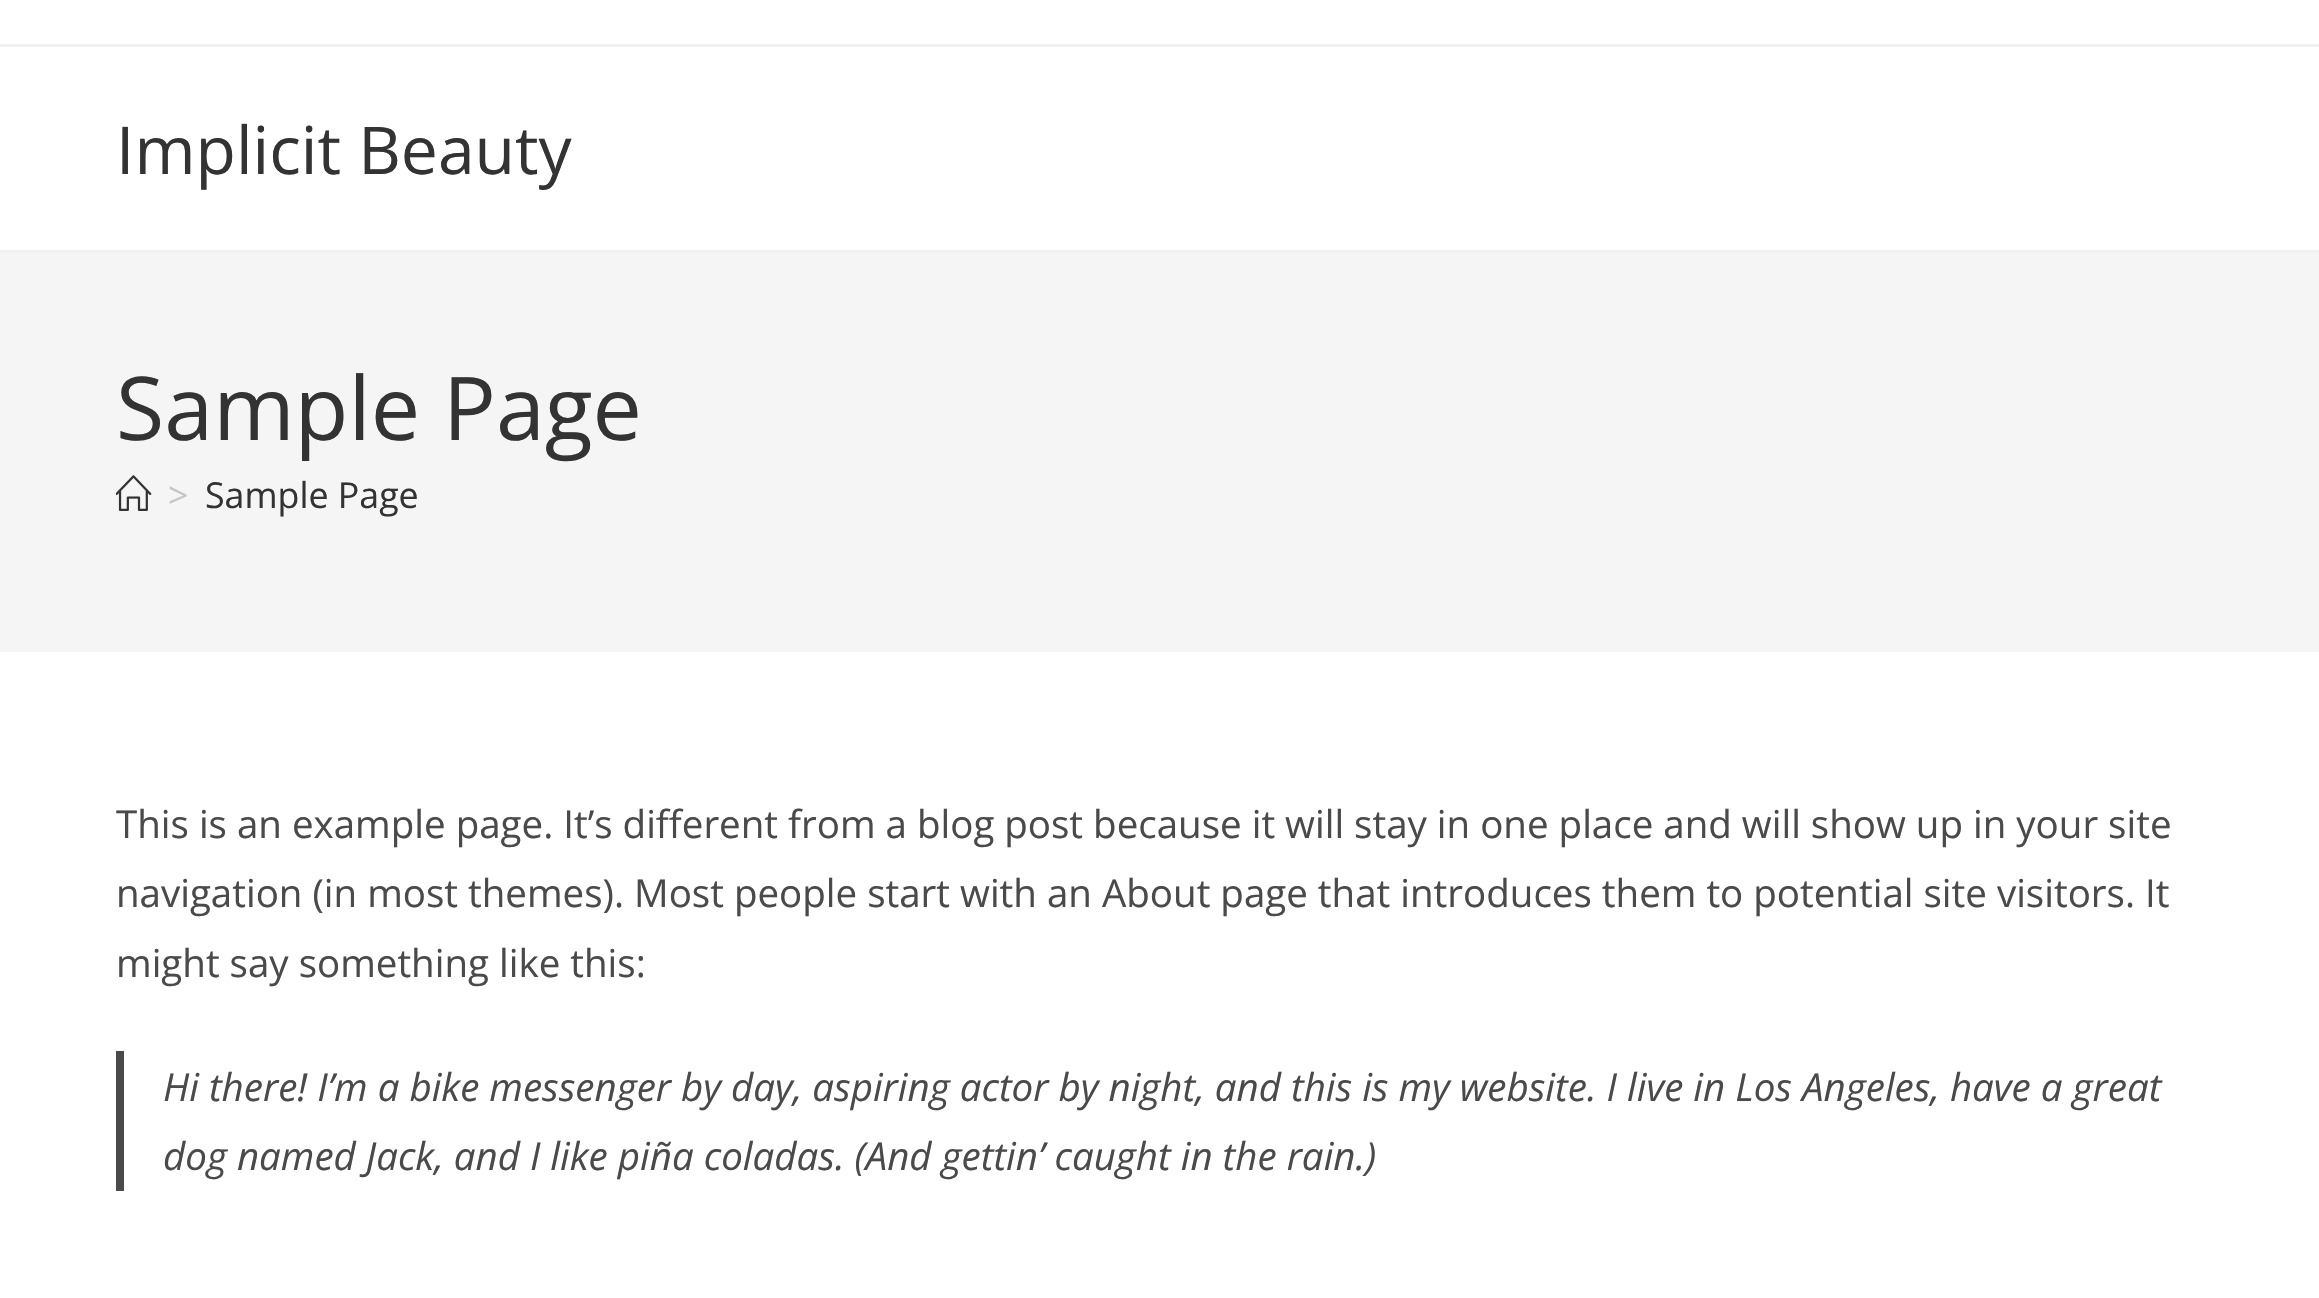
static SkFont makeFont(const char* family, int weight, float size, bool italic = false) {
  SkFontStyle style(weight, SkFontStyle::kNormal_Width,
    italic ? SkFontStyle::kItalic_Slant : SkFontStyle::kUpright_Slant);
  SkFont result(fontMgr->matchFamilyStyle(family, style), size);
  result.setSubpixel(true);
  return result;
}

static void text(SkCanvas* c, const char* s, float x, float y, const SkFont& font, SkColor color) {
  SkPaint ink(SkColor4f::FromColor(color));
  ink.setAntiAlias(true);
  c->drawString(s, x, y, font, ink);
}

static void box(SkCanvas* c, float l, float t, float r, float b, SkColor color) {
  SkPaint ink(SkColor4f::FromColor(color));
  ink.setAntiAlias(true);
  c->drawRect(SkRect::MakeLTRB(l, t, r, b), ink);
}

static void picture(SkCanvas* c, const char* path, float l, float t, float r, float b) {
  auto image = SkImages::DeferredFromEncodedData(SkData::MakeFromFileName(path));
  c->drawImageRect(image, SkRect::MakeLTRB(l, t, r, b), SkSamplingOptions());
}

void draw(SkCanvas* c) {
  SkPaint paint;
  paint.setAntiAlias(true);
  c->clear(0xffffffff);
  box(c, 0, 44, 2319, 47, 0xfff1f1f1);
  box(c, 0, 250, 2319, 253, 0xfff1f1f1);
  SkFont face1 = makeFont("Open Sans", 400, 66);
  text(c, "Implicit Beauty", 116, 174, face1, 0xff333333);
  box(c, 0, 253, 2319, 652, 0xfff5f5f5);
  SkFont face2 = makeFont("Open Sans", 400, 88);
  text(c, "Sample Page", 116, 440, face2, 0xff333333);
  picture(c, "img_01.png", 116, 475, 152, 511);
  SkFont face3 = makeFont("Open Sans", 400, 35.75f);
  text(c, ">", 168, 508, face3, 0xffc6c6c6);
  text(c, "Sample Page", 205, 508, face3, 0xff333333);
  SkFont face4 = makeFont("Open Sans", 400, 38.5f);
  text(c, "This is an example page. It’s different from a blog post because it will stay in one place and will show up in your site", 116, 838, face4, 0xff4a4a4a);
  text(c, "navigation (in most themes). Most people start with an About page that introduces them to potential site visitors. It", 116, 907, face4, 0xff4a4a4a);
  text(c, "might say something like this:", 116, 977, face4, 0xff4a4a4a);
  box(c, 116, 1051, 124, 1191, 0xff4a4a4a);
  SkFont face5 = makeFont("Open Sans", 400, 38.5f, true);
  text(c, "Hi there! I’m a bike messenger by day, aspiring actor by night, and this is my website. I live in Los Angeles, have a great", 163, 1101, face5, 0xff4a4a4a);
  text(c, "dog named Jack, and I like piña coladas. (And gettin’ caught in the rain.)", 163, 1170, face5, 0xff4a4a4a);
}
